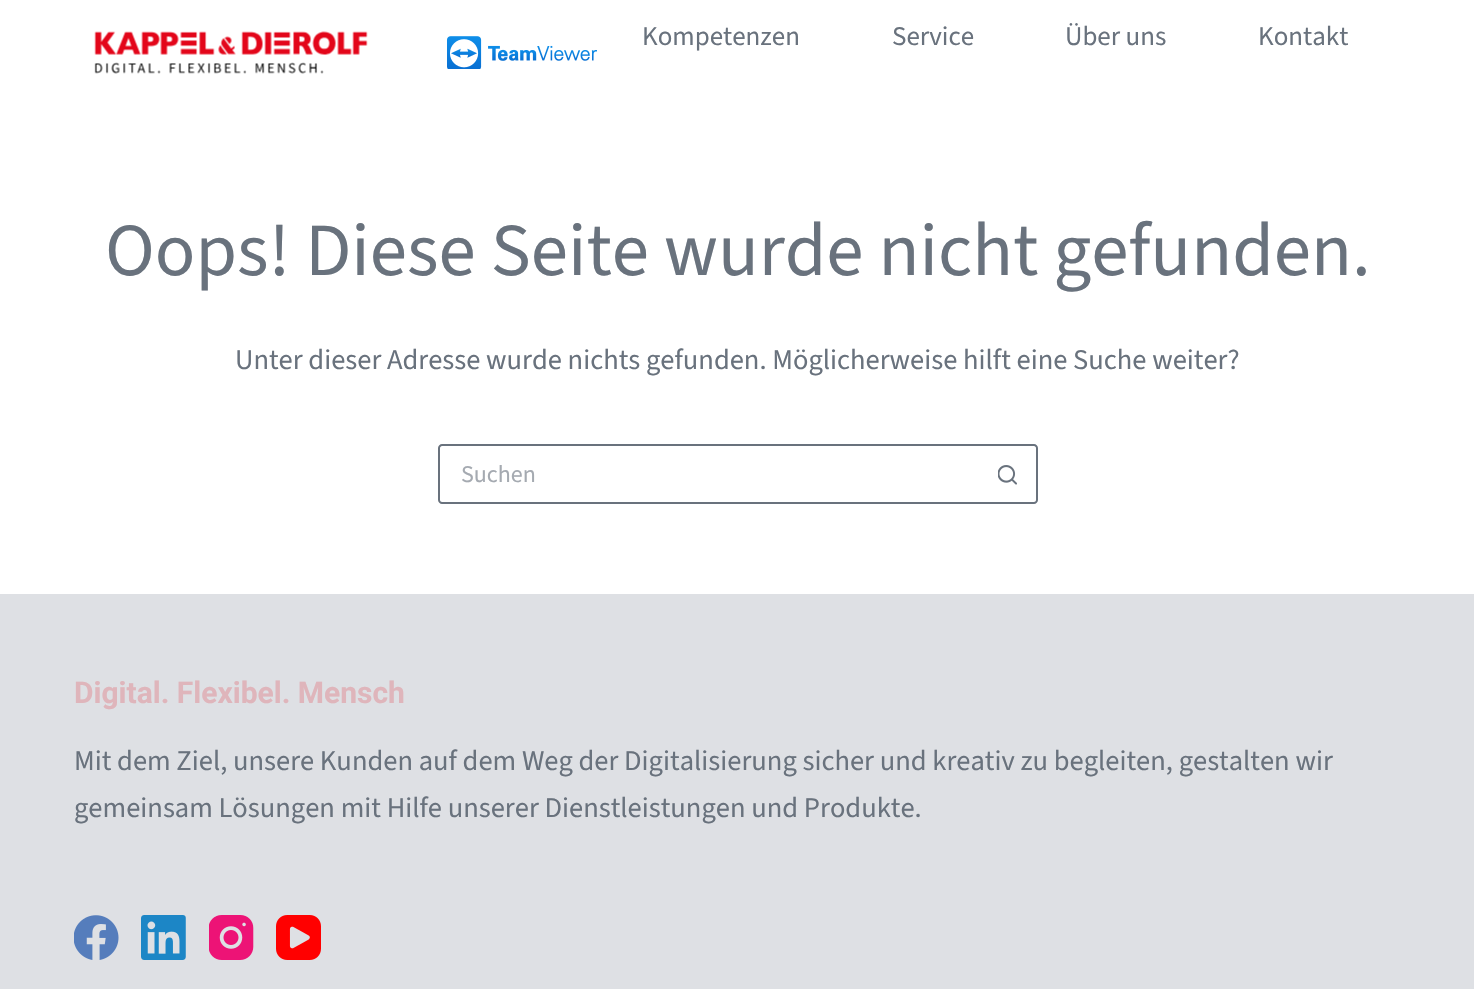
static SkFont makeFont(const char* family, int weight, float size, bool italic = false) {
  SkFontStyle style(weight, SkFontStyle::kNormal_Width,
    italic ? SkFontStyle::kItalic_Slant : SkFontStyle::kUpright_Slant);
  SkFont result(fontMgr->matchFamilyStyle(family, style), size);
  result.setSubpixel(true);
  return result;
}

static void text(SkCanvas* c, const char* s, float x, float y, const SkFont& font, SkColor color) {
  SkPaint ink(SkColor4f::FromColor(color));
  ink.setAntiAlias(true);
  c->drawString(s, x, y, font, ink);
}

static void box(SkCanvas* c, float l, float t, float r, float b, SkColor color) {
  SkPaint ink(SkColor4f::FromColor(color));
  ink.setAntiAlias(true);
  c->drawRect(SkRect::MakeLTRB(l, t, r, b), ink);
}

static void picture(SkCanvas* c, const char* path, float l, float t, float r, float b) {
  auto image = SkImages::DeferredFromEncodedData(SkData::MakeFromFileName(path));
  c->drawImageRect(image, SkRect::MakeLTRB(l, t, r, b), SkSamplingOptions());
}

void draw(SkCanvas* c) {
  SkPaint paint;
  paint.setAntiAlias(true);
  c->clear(0xffffffff);
  picture(c, "img_01.png", 94, 31, 368, 74);
  picture(c, "img_02.png", 447, 36, 597, 69);
  SkFont face1 = makeFont("Source Sans 3", 400, 27);
  text(c, "Kompetenzen", 642, 45, face1, 0xff69727d);
  text(c, "Service", 892, 45, face1, 0xff69727d);
  text(c, "Über uns", 1065, 45, face1, 0xff69727d);
  text(c, "Kontakt", 1258, 45, face1, 0xff69727d);
  SkFont face2 = makeFont("Source Sans 3", 400, 75);
  text(c, "Oops! Diese Seite wurde nicht gefunden.", 105, 275, face2, 0xff69727d);
  SkFont face3 = makeFont("Source Sans 3", 400, 28.5f);
  text(c, "Unter dieser Adresse wurde nichts gefunden. Möglicherweise hilft eine Suche weiter?", 235, 369, face3, 0xff69727d);
  paint.setColor(0xff69727d);
  c->drawPath(SkPathBuilder(SkPathFillType::kEvenOdd).moveTo(442, 444).lineTo(978, 444).lineTo(978, 504).lineTo(442, 504).cubicTo(440, 504, 438, 502, 438, 500).lineTo(438, 448).cubicTo(438, 446, 440, 444, 442, 444).close().moveTo(442, 446).lineTo(978, 446).lineTo(978, 502).lineTo(442, 502).cubicTo(441, 502, 440, 501, 440, 500).lineTo(440, 448).cubicTo(440, 447, 441, 446, 442, 446).close().detach(), paint);
  SkFont face4 = makeFont("Source Sans 3", 400, 24);
  text(c, "Suchen", 461, 482, face4, 0xffa5aab1);
  c->drawPath(SkPathBuilder(SkPathFillType::kEvenOdd).moveTo(978, 444).lineTo(1034, 444).cubicTo(1036, 444, 1038, 446, 1038, 448).lineTo(1038, 500).cubicTo(1038, 502, 1036, 504, 1034, 504).lineTo(978, 504).close().moveTo(978, 446).lineTo(1034, 446).cubicTo(1035, 446, 1036, 447, 1036, 448).lineTo(1036, 500).cubicTo(1036, 501, 1035, 502, 1034, 502).lineTo(978, 502).close().detach(), paint);
  picture(c, "img_03.png", 998, 465, 1017, 485);
  box(c, 0, 594, 1474, 989, 0xffdee0e4);
  SkFont face5 = makeFont("Roboto", 700, 30);
  text(c, "Digital. Flexibel. Mensch", 74, 703, face5, 0xffdfb5bb);
  text(c, "Mit dem Ziel, unsere Kunden auf dem Weg der Digitalisierung sicher und kreativ zu begleiten, gestalten wir", 74, 770, face3, 0xff69727d);
  text(c, "gemeinsam Lösungen mit Hilfe unserer Dienstleistungen und Produkte.", 74, 817, face3, 0xff69727d);
  picture(c, "img_04.png", 74, 915, 119, 960);
  picture(c, "img_05.png", 141, 915, 186, 960);
  picture(c, "img_06.png", 209, 915, 254, 960);
  picture(c, "img_07.png", 276, 915, 321, 960);
}
